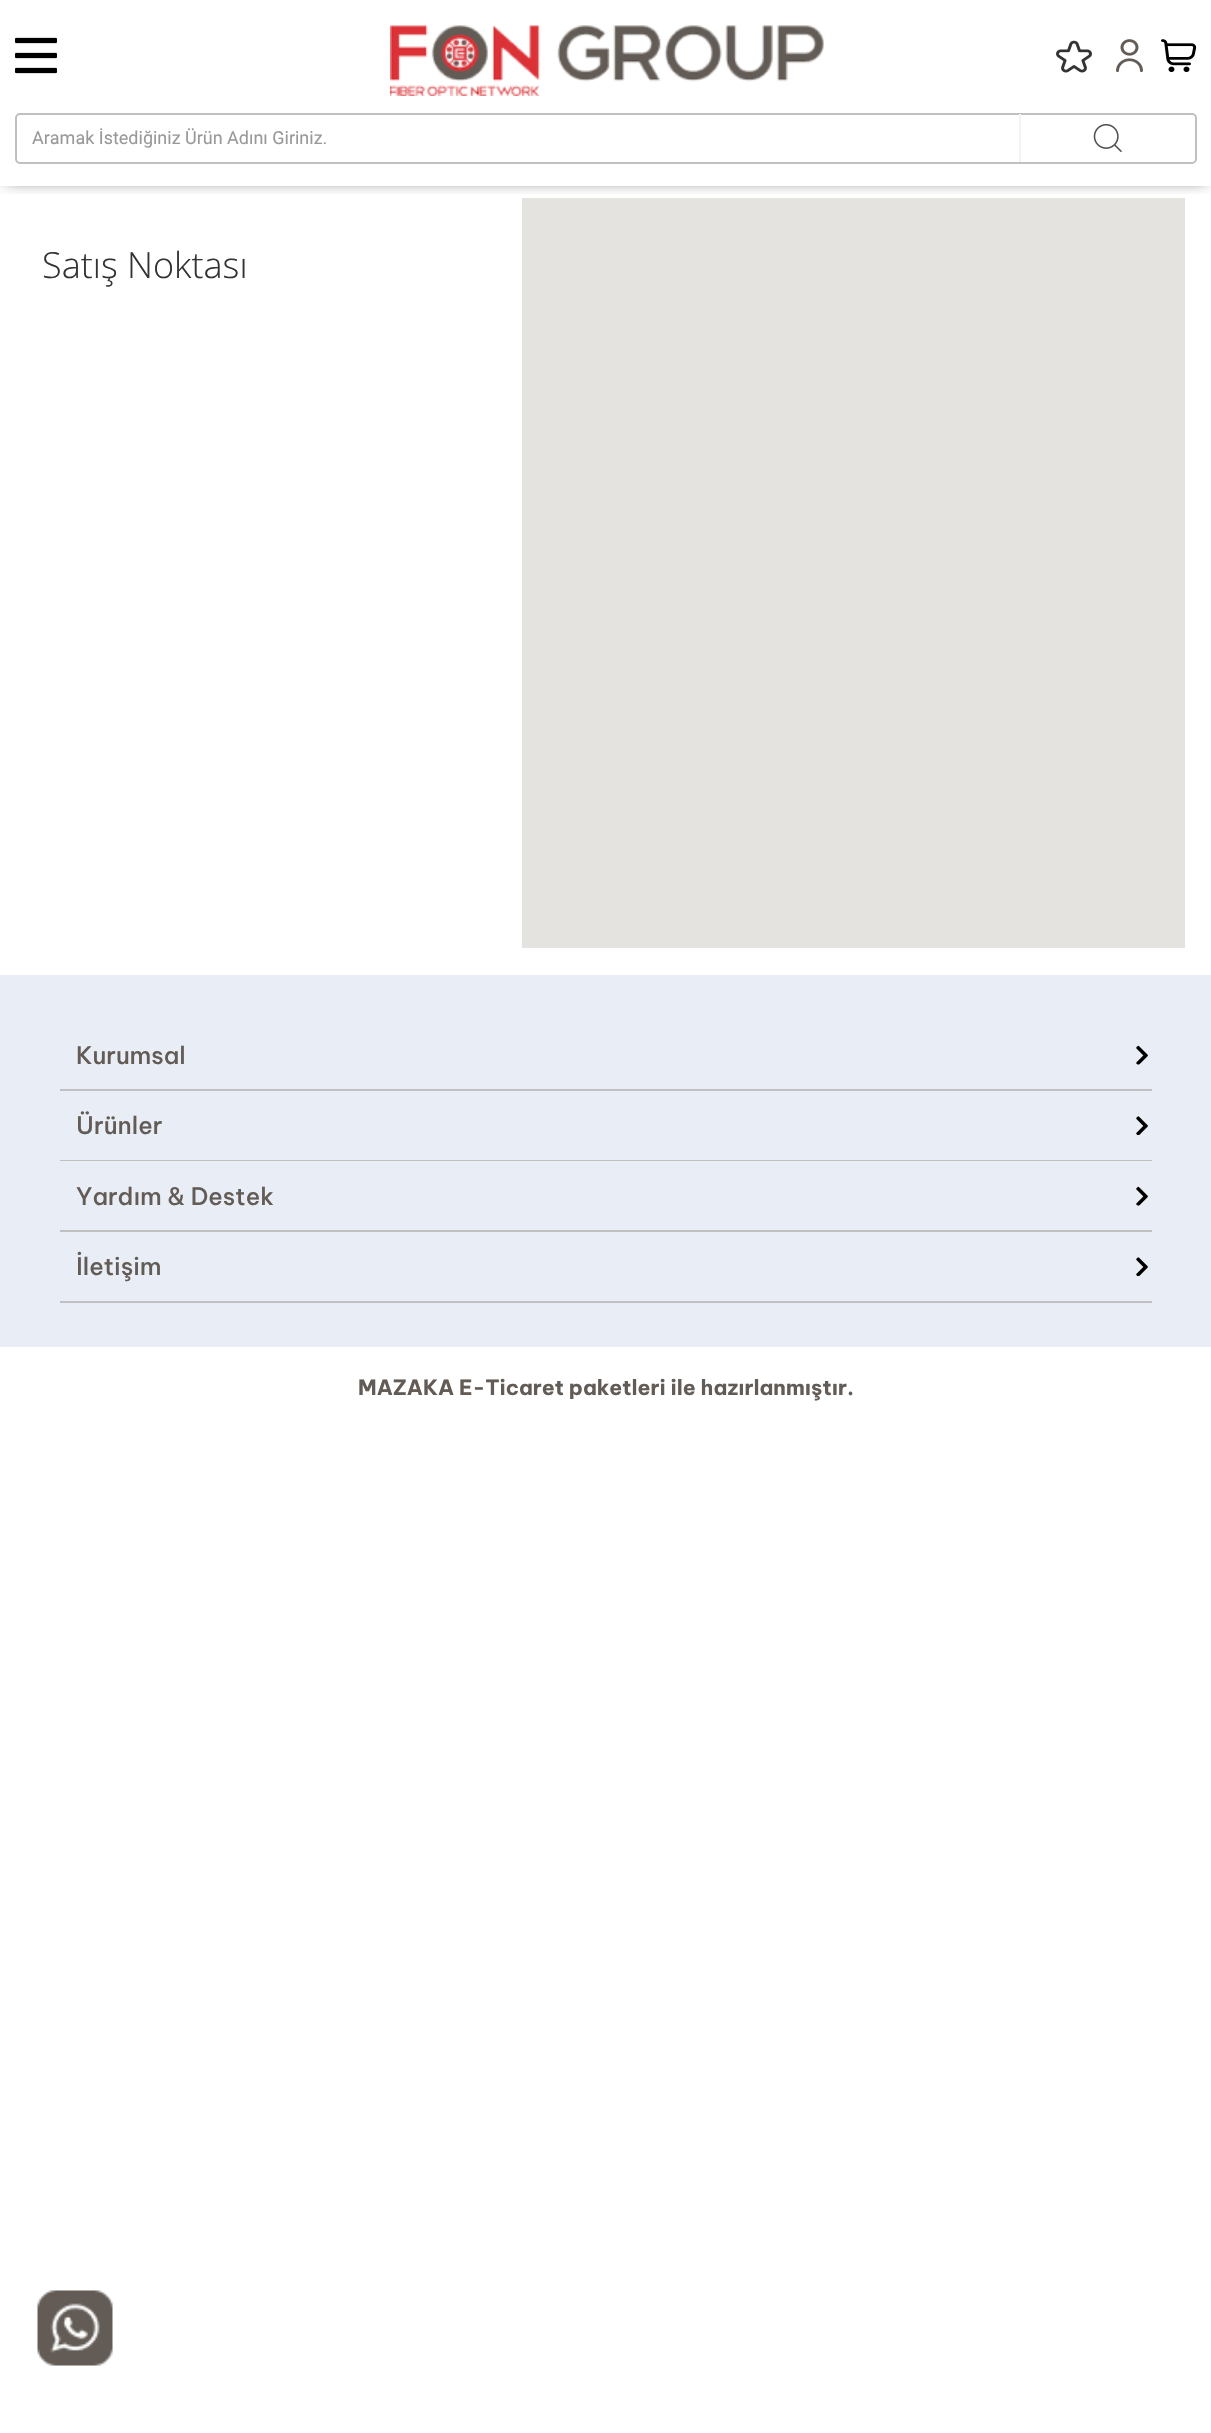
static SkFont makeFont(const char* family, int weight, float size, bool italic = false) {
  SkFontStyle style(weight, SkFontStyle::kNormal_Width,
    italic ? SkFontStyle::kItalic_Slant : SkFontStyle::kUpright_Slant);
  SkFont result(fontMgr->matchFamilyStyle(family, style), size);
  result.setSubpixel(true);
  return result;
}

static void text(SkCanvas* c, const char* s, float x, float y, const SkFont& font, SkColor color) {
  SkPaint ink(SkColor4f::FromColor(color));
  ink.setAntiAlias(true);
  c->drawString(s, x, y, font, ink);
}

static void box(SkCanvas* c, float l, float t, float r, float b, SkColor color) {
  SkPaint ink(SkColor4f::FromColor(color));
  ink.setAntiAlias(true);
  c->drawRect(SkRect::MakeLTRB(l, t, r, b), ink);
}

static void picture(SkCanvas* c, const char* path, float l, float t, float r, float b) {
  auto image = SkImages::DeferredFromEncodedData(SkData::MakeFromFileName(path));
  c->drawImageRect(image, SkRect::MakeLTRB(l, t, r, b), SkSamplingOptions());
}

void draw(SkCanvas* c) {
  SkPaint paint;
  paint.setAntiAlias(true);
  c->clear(0xffffffff);
  box(c, 522, 198, 1185, 948, 0xffe5e3df);
  c->save();
  c->clipRect(SkRect::MakeLTRB(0, 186, 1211, 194));
  paint.setColor(0xb3000000);
  paint.setMaskFilter(SkMaskFilter::MakeBlur(kNormal_SkBlurStyle, 7.5f));
  c->drawRect(SkRect::MakeLTRB(6, 6, 1206, 180), paint);
  paint.setMaskFilter(nullptr);
  c->restore();
  picture(c, "img_01.png", 15, 37, 57, 74);
  picture(c, "img_02.png", 390, 25, 824, 96);
  picture(c, "img_03.png", 1056, 40, 1092, 73);
  picture(c, "img_04.png", 1116, 39, 1143, 72);
  picture(c, "img_05.png", 1161, 39, 1197, 72);
  paint.setStyle(SkPaint::kStroke_Style);
  paint.setStrokeWidth(2);
  paint.setColor(0xffc0c0c0);
  c->drawRoundRect(SkRect::MakeLTRB(16, 114, 1196, 163), 4, 4, paint);
  SkFont face1 = makeFont("Roboto", 400, 18);
  text(c, "Aramak İstediğiniz Ürün Adını Giriniz.", 32, 144, face1, 0xff999999);
  box(c, 1019, 114, 1021, 162, 0xfff3f3f3);
  picture(c, "img_06.png", 1093, 123, 1122, 152);
  SkFont face2 = makeFont("Open Sans", 300, 36);
  text(c, "Satış Noktası", 42, 278, face2, 0xff333333);
  box(c, 0, 975, 1211, 1347, 0xffe9edf6);
  box(c, 60, 1089, 1152, 1091, 0xffc0c0c0);
  SkFont face3 = makeFont("Be Vietnam Pro", 500, 24);
  text(c, "Kurumsal", 76, 1064, face3, 0xff635c56);
  picture(c, "img_07.png", 1136, 1045, 1148, 1065);
  box(c, 60, 1160, 1152, 1161, 0xffc0c0c0);
  text(c, "Ürünler", 76, 1134, face3, 0xff635c56);
  picture(c, "img_08.png", 1136, 1116, 1148, 1136);
  box(c, 60, 1230, 1152, 1232, 0xffc0c0c0);
  text(c, "Yardım & Destek", 76, 1205, face3, 0xff635c56);
  picture(c, "img_07.png", 1136, 1186, 1148, 1206);
  box(c, 60, 1301, 1152, 1303, 0xffc0c0c0);
  text(c, "İletişim", 76, 1275, face3, 0xff635c56);
  picture(c, "img_08.png", 1136, 1257, 1148, 1277);
  SkFont face4 = makeFont("Be Vietnam Pro", 700, 21);
  text(c, "MAZAKA E-Ticaret paketleri ile hazırlanmıştır.", 358, 1395, face4, 0xff635c56);
  picture(c, "img_09.png", 37, 2290, 113, 2366);
}
